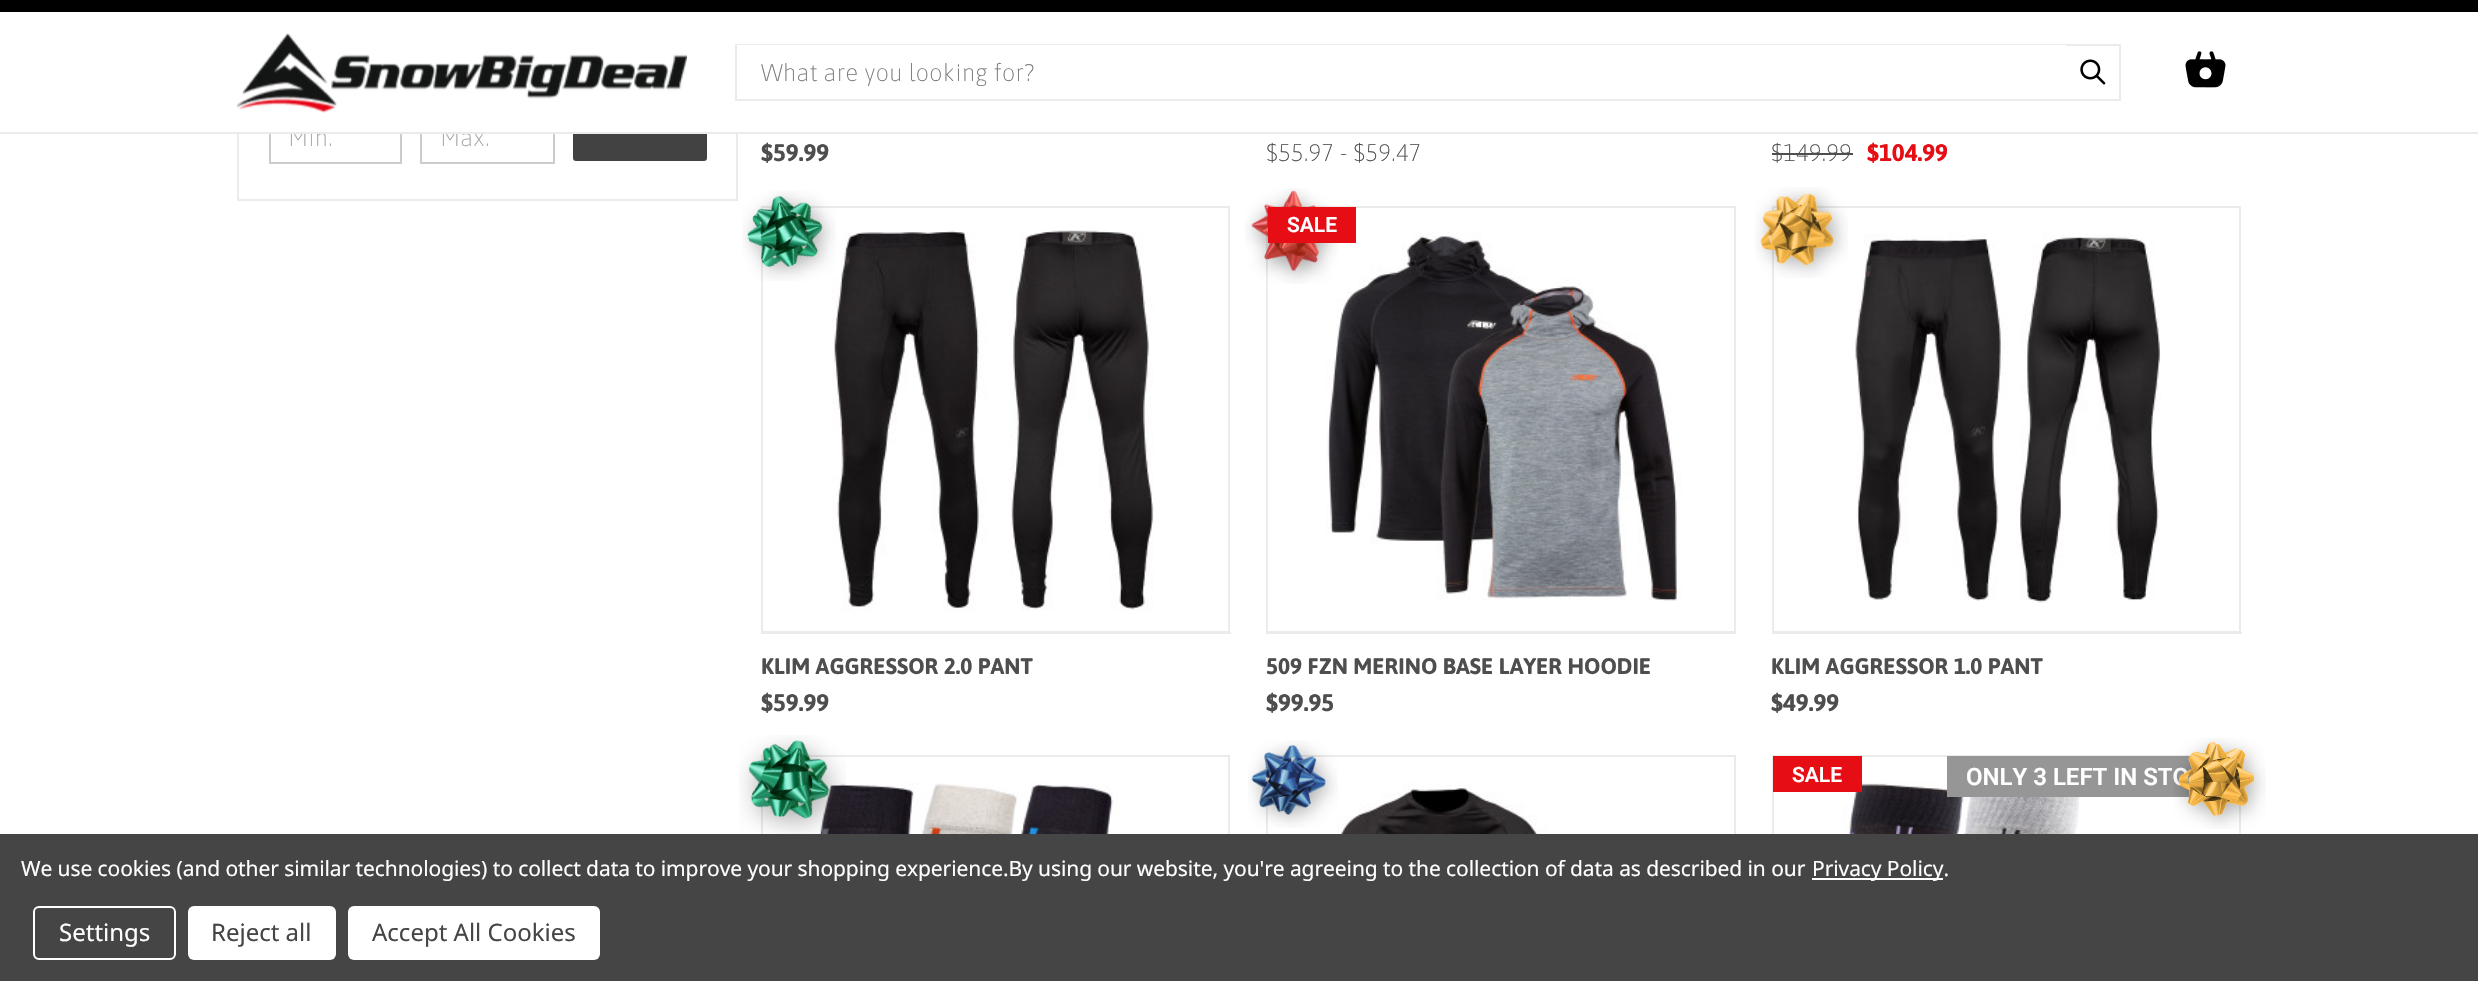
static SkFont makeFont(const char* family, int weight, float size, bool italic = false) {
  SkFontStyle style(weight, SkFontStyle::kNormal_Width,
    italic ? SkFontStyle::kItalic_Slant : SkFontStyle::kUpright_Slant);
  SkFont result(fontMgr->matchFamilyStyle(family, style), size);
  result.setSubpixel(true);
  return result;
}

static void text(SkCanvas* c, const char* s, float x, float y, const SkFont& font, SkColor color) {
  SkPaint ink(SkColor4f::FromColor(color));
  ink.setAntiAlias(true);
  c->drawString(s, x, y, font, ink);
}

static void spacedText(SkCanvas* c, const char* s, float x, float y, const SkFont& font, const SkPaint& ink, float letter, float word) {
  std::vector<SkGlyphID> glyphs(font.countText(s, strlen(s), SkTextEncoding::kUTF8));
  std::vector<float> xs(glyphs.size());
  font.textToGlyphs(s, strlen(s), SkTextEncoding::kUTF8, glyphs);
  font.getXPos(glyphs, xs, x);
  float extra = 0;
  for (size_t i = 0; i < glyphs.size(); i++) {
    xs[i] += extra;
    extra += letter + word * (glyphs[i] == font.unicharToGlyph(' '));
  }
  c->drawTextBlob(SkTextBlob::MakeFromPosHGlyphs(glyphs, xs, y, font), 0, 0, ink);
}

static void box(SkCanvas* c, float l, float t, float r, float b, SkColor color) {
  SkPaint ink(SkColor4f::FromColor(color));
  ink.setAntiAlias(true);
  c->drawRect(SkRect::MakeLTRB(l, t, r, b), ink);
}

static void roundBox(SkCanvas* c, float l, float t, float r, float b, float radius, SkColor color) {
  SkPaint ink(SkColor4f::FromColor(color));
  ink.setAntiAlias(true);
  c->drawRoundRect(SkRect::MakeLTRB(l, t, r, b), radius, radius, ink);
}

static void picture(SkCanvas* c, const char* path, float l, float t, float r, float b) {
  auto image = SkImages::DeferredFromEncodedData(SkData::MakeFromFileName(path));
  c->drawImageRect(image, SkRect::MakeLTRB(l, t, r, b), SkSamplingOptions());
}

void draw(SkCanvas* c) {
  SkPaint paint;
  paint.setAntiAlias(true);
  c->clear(0xffffffff);
  paint.setStyle(SkPaint::kStroke_Style);
  paint.setStrokeWidth(2);
  paint.setColor(0xffebebeb);
  c->drawRect(SkRect::MakeLTRB(238, 25, 737, 200), paint);
  paint.setColor(0xffcccccc);
  c->drawRect(SkRect::MakeLTRB(270, 111, 401, 163), paint);
  SkFont face1 = makeFont("Asap", 100, 24);
  text(c, "Min.", 288, 146, face1, 0xffa5a5a5);
  c->drawRect(SkRect::MakeLTRB(421, 111, 554, 163), paint);
  text(c, "Max.", 440, 146, face1, 0xffa5a5a5);
  roundBox(c, 573, 110, 707, 161, 3, 0xff424242);
  box(c, 237, 24, 738, 132, 0xffffffff);
  box(c, 0, 0, 2478, 12, 0xff000000);
  box(c, 0, 132, 2478, 134, 0xffebebeb);
  picture(c, "img_01.png", 237, 33, 687, 113);
  paint.setColor(0xffebebeb);
  c->drawRect(SkRect::MakeLTRB(736, 45, 2120, 100), paint);
  box(c, 737, 45, 2066, 46, 0xffffffff);
  text(c, "What are you looking for?", 761, 81, face1, 0xff777777);
  picture(c, "img_02.png", 2080, 59, 2106, 85);
  picture(c, "img_03.png", 2185, 51, 2226, 88);
  SkFont face2 = makeFont("Asap", 700, 24);
  text(c, "$59.99", 761, 161, face2, 0xff4e4e4e);
  text(c, "$55.97 - $59.47", 1266, 161, face1, 0xff4e4e4e);
  text(c, "$149.99", 1771, 161, face1, 0xff4e4e4e);
  box(c, 1772, 153, 1853, 155, 0xff4e4e4e);
  text(c, "$104.99", 1867, 161, face2, 0xffe60d14);
  c->drawRect(SkRect::MakeLTRB(762, 207, 1229, 632), paint);
  picture(c, "img_05.png", 832, 230, 1154, 611);
  picture(c, "img_04.png", 742, 190, 836, 281);
  box(c, 1229, 632, 1231, 634, 0xffebebeb);
  box(c, 761, 633, 1230, 634, 0xffebebeb);
  SkFont face3 = makeFont("Asap", 700, 22.5f);
  text(c, "KLIM AGGRESSOR 2.0 PANT", 761, 674, face3, 0xff4e4e4e);
  text(c, "$59.99", 761, 711, face2, 0xff4e4e4e);
  c->drawRect(SkRect::MakeLTRB(1267, 207, 1735, 632), paint);
  picture(c, "img_07.png", 1325, 232, 1682, 601);
  picture(c, "img_06.png", 1245, 188, 1339, 284);
  box(c, 1268, 207, 1356, 243, 0xffe60d14);
  SkFont face4 = makeFont("Roboto", 600, 21);
  text(c, "SALE", 1287, 232, face4, 0xffffffff);
  box(c, 1266, 633, 1736, 634, 0xffebebeb);
  text(c, "509 FZN MERINO BASE LAYER HOODIE", 1266, 674, face3, 0xff4e4e4e);
  text(c, "$99.95", 1266, 711, face2, 0xff4e4e4e);
  c->drawRect(SkRect::MakeLTRB(1773, 207, 2240, 632), paint);
  picture(c, "img_08.png", 1755, 187, 1848, 278);
  picture(c, "img_09.png", 1855, 234, 2161, 603);
  box(c, 2240, 632, 2242, 634, 0xffebebeb);
  box(c, 1772, 633, 2241, 634, 0xffebebeb);
  text(c, "KLIM AGGRESSOR 1.0 PANT", 1771, 674, face3, 0xff4e4e4e);
  text(c, "$49.99", 1771, 711, face2, 0xff4e4e4e);
  c->drawRect(SkRect::MakeLTRB(762, 756, 1229, 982), paint);
  picture(c, "img_11.png", 816, 783, 1118, 834);
  picture(c, "img_10.png", 739, 735, 846, 834);
  c->drawRect(SkRect::MakeLTRB(1267, 756, 1735, 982), paint);
  picture(c, "img_13.png", 1320, 783, 1671, 834);
  picture(c, "img_12.png", 1248, 740, 1338, 828);
  c->drawRect(SkRect::MakeLTRB(1773, 756, 2240, 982), paint);
  picture(c, "img_15.png", 1842, 782, 2080, 834);
  box(c, 1773, 756, 1862, 792, 0xffe60d14);
  text(c, "SALE", 1792, 782, face4, 0xffffffff);
  box(c, 1947, 756, 2240, 797, 0xff969696);
  SkFont face5 = makeFont("Roboto", 600, 24);
  text(c, "ONLY 3 LEFT IN STO", 1966, 785, face5, 0xffffffff);
  picture(c, "img_14.png", 2173, 738, 2266, 829);
  box(c, 0, 834, 2478, 981, 0xff454545);
  SkFont face6 = makeFont("Noto Sans", 400, 21);
  paint.setStyle(SkPaint::kFill_Style);
  paint.setColor(0xffffffff);
  spacedText(c, "We use cookies (and other similar technologies) to collect data to improve your shopping experience.By using our website, you're agreeing to the collection of data as described in our", 21, 876, face6, paint, -0.08f, 0);
  box(c, 1812, 878, 1943, 880, 0xffffffff);
  spacedText(c, "Privacy Policy.", 1812, 876, face6, paint, -0.08f, 0);
  paint.setStyle(SkPaint::kStroke_Style);
  c->drawRoundRect(SkRect::MakeLTRB(34, 907, 175, 959), 5, 5, paint);
  SkFont face7 = makeFont("Noto Sans", 400, 24);
  text(c, "Settings", 59, 941, face7, 0xffffffff);
  roundBox(c, 188, 906, 336, 960, 6, 0xffffffff);
  text(c, "Reject all", 211, 941, face7, 0xff454545);
  roundBox(c, 348, 906, 600, 960, 6, 0xffffffff);
  text(c, "Accept All Cookies", 372, 941, face7, 0xff454545);
}
